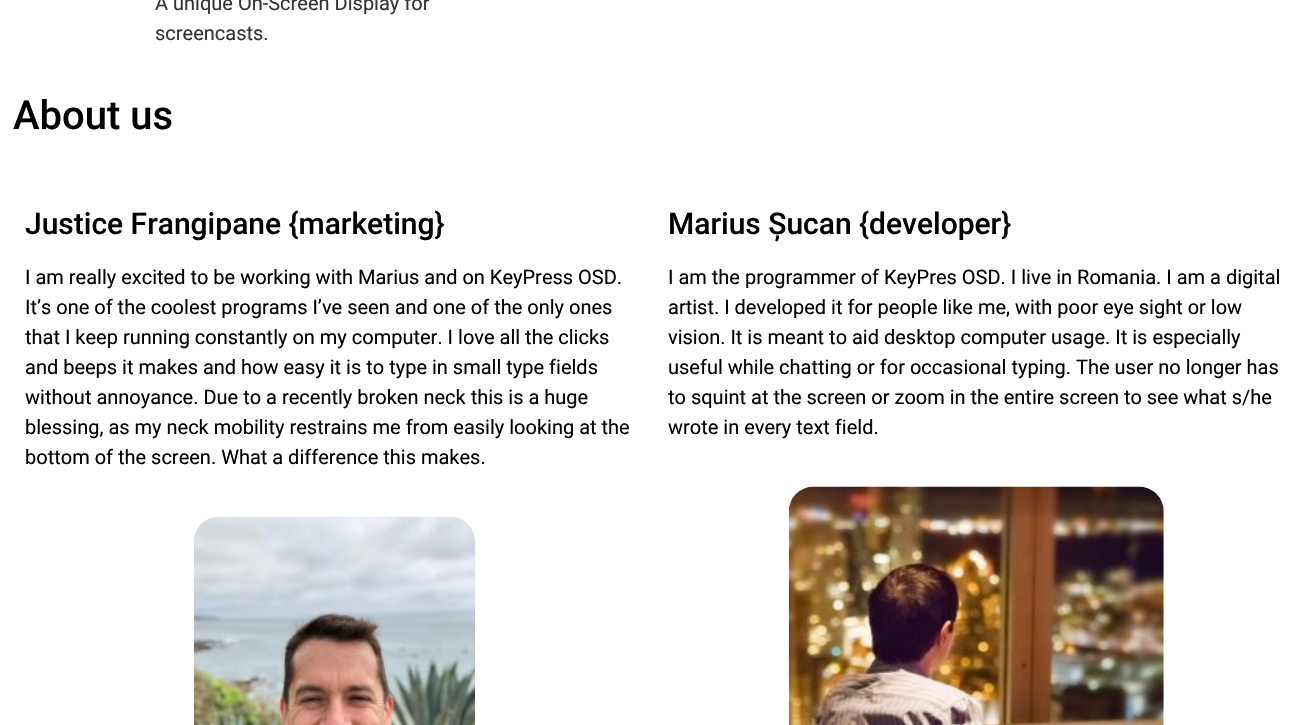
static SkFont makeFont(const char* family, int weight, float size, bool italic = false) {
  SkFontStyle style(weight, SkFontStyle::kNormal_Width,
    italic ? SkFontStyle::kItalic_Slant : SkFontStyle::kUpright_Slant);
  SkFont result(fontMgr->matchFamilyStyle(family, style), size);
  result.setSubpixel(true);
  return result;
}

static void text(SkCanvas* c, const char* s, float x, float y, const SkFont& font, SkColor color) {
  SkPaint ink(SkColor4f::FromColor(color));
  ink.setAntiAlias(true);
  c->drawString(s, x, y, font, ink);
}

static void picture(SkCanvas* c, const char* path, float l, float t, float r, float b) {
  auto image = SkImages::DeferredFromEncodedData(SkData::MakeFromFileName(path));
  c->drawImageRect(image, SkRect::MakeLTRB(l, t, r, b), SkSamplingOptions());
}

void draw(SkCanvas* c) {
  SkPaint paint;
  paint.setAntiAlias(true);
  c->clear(0xffffffff);
  SkFont face1 = makeFont("Roboto", 400, 20);
  text(c, "A unique On-Screen Display for", 155, 10, face1, 0xff333333);
  text(c, "screencasts.", 155, 40, face1, 0xff333333);
  SkFont face2 = makeFont("Roboto", 500, 40);
  text(c, "About us", 13, 129, face2, 0xff000000);
  SkFont face3 = makeFont("Roboto", 500, 30);
  text(c, "Justice Frangipane {marketing}", 25, 234, face3, 0xff000000);
  text(c, "I am really excited to be working with Marius and on KeyPress OSD.", 25, 284, face1, 0xff000000);
  text(c, "It’s one of the coolest programs I’ve seen and one of the only ones", 25, 314, face1, 0xff000000);
  text(c, "that I keep running constantly on my computer. I love all the clicks", 25, 344, face1, 0xff000000);
  text(c, "and beeps it makes and how easy it is to type in small type fields", 25, 374, face1, 0xff000000);
  text(c, "without annoyance. Due to a recently broken neck this is a huge", 25, 404, face1, 0xff000000);
  text(c, "blessing, as my neck mobility restrains me from easily looking at the", 25, 434, face1, 0xff000000);
  text(c, "bottom of the screen. What a difference this makes.", 25, 464, face1, 0xff000000);
  picture(c, "img_01.png", 193, 516, 475, 725);
  text(c, "Marius Șucan {developer}", 668, 234, face3, 0xff000000);
  text(c, "I am the programmer of KeyPres OSD. I live in Romania. I am a digital", 668, 284, face1, 0xff000000);
  text(c, "artist. I developed it for people like me, with poor eye sight or low", 668, 314, face1, 0xff000000);
  text(c, "vision. It is meant to aid desktop computer usage. It is especially", 668, 344, face1, 0xff000000);
  text(c, "useful while chatting or for occasional typing. The user no longer has", 668, 374, face1, 0xff000000);
  text(c, "to squint at the screen or zoom in the entire screen to see what s/he", 668, 404, face1, 0xff000000);
  text(c, "wrote in every text field.", 668, 434, face1, 0xff000000);
  picture(c, "img_02.png", 788, 486, 1164, 725);
}
